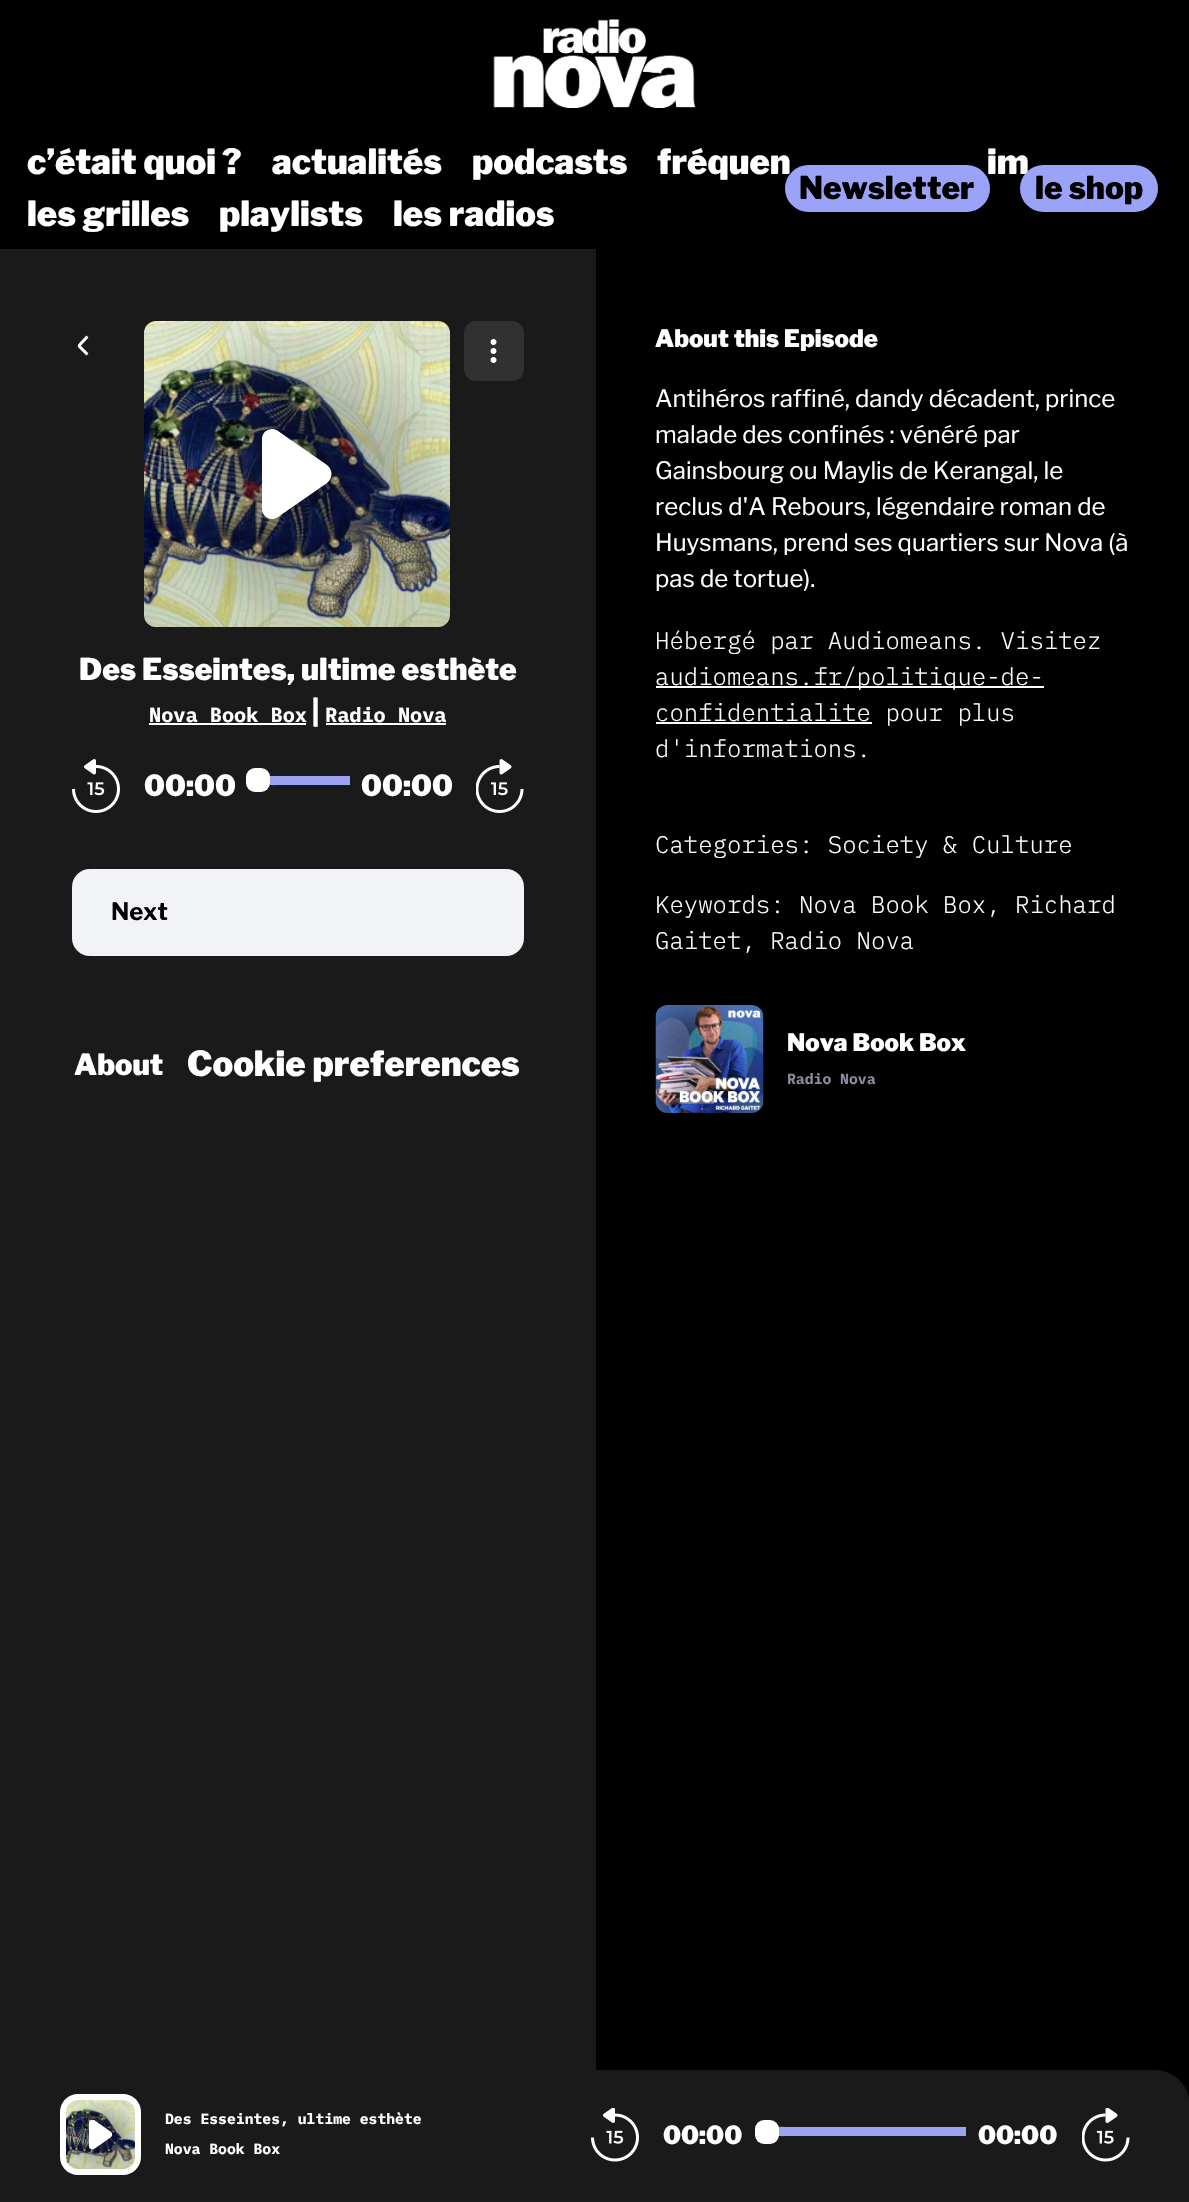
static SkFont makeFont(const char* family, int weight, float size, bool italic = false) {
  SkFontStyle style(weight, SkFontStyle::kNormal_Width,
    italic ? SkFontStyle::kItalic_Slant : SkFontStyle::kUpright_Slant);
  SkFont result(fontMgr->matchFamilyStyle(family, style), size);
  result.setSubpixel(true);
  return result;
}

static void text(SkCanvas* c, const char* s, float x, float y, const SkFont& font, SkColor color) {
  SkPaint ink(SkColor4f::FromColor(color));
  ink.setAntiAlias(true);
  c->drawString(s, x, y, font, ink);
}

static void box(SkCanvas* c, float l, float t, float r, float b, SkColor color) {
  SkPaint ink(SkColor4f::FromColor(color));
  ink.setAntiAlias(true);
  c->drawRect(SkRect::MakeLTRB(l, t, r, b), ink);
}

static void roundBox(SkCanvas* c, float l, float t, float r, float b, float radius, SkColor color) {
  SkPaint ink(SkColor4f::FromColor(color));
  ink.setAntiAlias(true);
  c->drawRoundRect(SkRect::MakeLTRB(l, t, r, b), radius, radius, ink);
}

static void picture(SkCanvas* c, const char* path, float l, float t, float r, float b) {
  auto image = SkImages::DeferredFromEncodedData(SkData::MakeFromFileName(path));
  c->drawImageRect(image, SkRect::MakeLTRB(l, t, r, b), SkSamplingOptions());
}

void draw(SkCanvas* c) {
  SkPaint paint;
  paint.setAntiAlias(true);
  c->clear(0xff1a1a1b);
  box(c, 0, 0, 1189, 249, 0xff000000);
  picture(c, "img_01.png", 493, 19, 696, 108);
  SkFont face1 = makeFont("Libre Franklin", 900, 34.5f);
  text(c, "c’était quoi ?", 27, 174, face1, 0xffffffff);
  text(c, "actualités", 272, 174, face1, 0xffffffff);
  text(c, "podcasts", 472, 174, face1, 0xffffffff);
  text(c, "fréquen", 657, 174, face1, 0xffffffff);
  text(c, "im", 987, 174, face1, 0xffffffff);
  text(c, "les grilles", 27, 226, face1, 0xffffffff);
  text(c, "playlists", 219, 226, face1, 0xffffffff);
  text(c, "les radios", 393, 226, face1, 0xffffffff);
  roundBox(c, 785, 165, 990, 212, 23.5f, 0xff9ba3f8);
  SkFont face2 = makeFont("Libre Franklin", 900, 31.5f);
  text(c, "Newsletter", 799, 199, face2, 0xff000000);
  roundBox(c, 1020, 165, 1158, 212, 23.5f, 0xff9ba3f8);
  text(c, "le shop", 1035, 199, face2, 0xff000000);
  c->save();
  c->clipPath(SkPathBuilder().moveTo(88.5f, 335).lineTo(88.5f, 356).lineTo(76.5f, 356).lineTo(76.5f, 335).close().detach(), true);
  paint.setStyle(SkPaint::kStroke_Style);
  paint.setStrokeWidth(3);
  paint.setColor(0xffffffff);
  c->drawPath(SkPathBuilder().moveTo(87.5f, 336.5f).lineTo(80, 344.5f).cubicTo(79, 345.5f, 79, 346, 80, 347).lineTo(87.5f, 354.5f).detach(), paint);
  c->restore();
  roundBox(c, 464, 321, 524, 381, 12, 0xff313132);
  picture(c, "img_02.png", 490, 339, 497, 363);
  picture(c, "img_03.png", 144, 321, 450, 627);
  paint.setStyle(SkPaint::kFill_Style);
  {
    const SkColor colors[] = {0x66181724, 0x00181724};
    const float stops[] = {0, 1};
    paint.setShader(SkGradientShader::MakeRadial({297, 474}, 153, colors, stops, 2, SkTileMode::kClamp));
    paint.setAlpha(255);
  }
  c->drawRect(SkRect::MakeLTRB(152, 329, 442, 619), paint);
  paint.setShader(nullptr);
  paint.setColor(0xffffffff);
  c->drawPath(SkPathBuilder().moveTo(262, 509).lineTo(262, 439).cubicTo(262, 431, 271, 426, 278, 431).lineTo(327, 465).cubicTo(333, 470, 333, 478, 327, 483).lineTo(278, 517).cubicTo(271, 522, 262, 517, 262, 509).close().detach(), paint);
  SkFont face3 = makeFont("Libre Franklin", 900, 30);
  text(c, "Des Esseintes, ultime esthète", 79, 680, face3, 0xffffffff);
  SkFont face4 = makeFont("IBM Plex Mono", 700, 20.25f);
  text(c, "Nova Book Box", 149, 722, face4, 0xffffffff);
  box(c, 149, 723, 306, 725, 0xffffffff);
  SkFont face5 = makeFont("Libre Franklin", 900, 29);
  text(c, "|", 312, 722, face5, 0xffffffff);
  text(c, "Radio Nova", 325, 722, face4, 0xffffffff);
  box(c, 326, 723, 446, 725, 0xffffffff);
  picture(c, "img_04.png", 72, 759, 120, 813);
  text(c, "00:00", 144, 796, face5, 0xffffffff);
  c->save();
  c->clipRect(SkRect::MakeLTRB(246, 750, 350, 810));
  roundBox(c, 342, 776, 351, 785, 1.5f, 0xff9ca3f2);
  c->restore();
  roundBox(c, 341, 776, 350, 785, 1.5f, 0xff9ca3f2);
  roundBox(c, 339, 776, 348, 785, 1.5f, 0xff9ca3f2);
  roundBox(c, 338, 776, 347, 785, 1.5f, 0xff9ca3f2);
  roundBox(c, 336, 776, 345, 785, 1.5f, 0xff9ca3f2);
  roundBox(c, 335, 776, 344, 785, 1.5f, 0xff9ca3f2);
  roundBox(c, 333, 776, 342, 785, 1.5f, 0xff9ca3f2);
  roundBox(c, 332, 776, 341, 785, 1.5f, 0xff9ca3f2);
  roundBox(c, 330, 776, 339, 785, 1.5f, 0xff9ca3f2);
  roundBox(c, 329, 776, 338, 785, 1.5f, 0xff9ca3f2);
  roundBox(c, 327, 776, 336, 785, 1.5f, 0xff9ca3f2);
  roundBox(c, 326, 776, 335, 785, 1.5f, 0xff9ca3f2);
  roundBox(c, 324, 776, 333, 785, 1.5f, 0xff9ca3f2);
  roundBox(c, 323, 776, 332, 785, 1.5f, 0xff9ca3f2);
  roundBox(c, 321, 776, 330, 785, 1.5f, 0xff9ca3f2);
  roundBox(c, 320, 776, 329, 785, 1.5f, 0xff9ca3f2);
  roundBox(c, 318, 776, 327, 785, 1.5f, 0xff9ca3f2);
  roundBox(c, 317, 776, 326, 785, 1.5f, 0xff9ca3f2);
  roundBox(c, 315, 776, 324, 785, 1.5f, 0xff9ca3f2);
  roundBox(c, 314, 776, 323, 785, 1.5f, 0xff9ca3f2);
  roundBox(c, 312, 776, 321, 785, 1.5f, 0xff9ca3f2);
  roundBox(c, 311, 776, 320, 785, 1.5f, 0xff9ca3f2);
  roundBox(c, 309, 776, 318, 785, 1.5f, 0xff9ca3f2);
  roundBox(c, 308, 776, 317, 785, 1.5f, 0xff9ca3f2);
  roundBox(c, 306, 776, 315, 785, 1.5f, 0xff9ca3f2);
  roundBox(c, 305, 776, 314, 785, 1.5f, 0xff9ca3f2);
  roundBox(c, 303, 776, 312, 785, 1.5f, 0xff9ca3f2);
  roundBox(c, 302, 776, 311, 785, 1.5f, 0xff9ca3f2);
  roundBox(c, 300, 776, 309, 785, 1.5f, 0xff9ca3f2);
  roundBox(c, 299, 776, 308, 785, 1.5f, 0xff9ca3f2);
  roundBox(c, 297, 776, 306, 785, 1.5f, 0xff9ca3f2);
  roundBox(c, 296, 776, 305, 785, 1.5f, 0xff9ca3f2);
  roundBox(c, 294, 776, 303, 785, 1.5f, 0xff9ca3f2);
  roundBox(c, 293, 776, 302, 785, 1.5f, 0xff9ca3f2);
  roundBox(c, 291, 776, 300, 785, 1.5f, 0xff9ca3f2);
  roundBox(c, 290, 776, 299, 785, 1.5f, 0xff9ca3f2);
  roundBox(c, 288, 776, 297, 785, 1.5f, 0xff9ca3f2);
  roundBox(c, 287, 776, 296, 785, 1.5f, 0xff9ca3f2);
  roundBox(c, 285, 776, 294, 785, 1.5f, 0xff9ca3f2);
  roundBox(c, 284, 776, 293, 785, 1.5f, 0xff9ca3f2);
  roundBox(c, 282, 776, 291, 785, 1.5f, 0xff9ca3f2);
  roundBox(c, 281, 776, 290, 785, 1.5f, 0xff9ca3f2);
  roundBox(c, 279, 776, 288, 785, 1.5f, 0xff9ca3f2);
  roundBox(c, 278, 776, 287, 785, 1.5f, 0xff9ca3f2);
  roundBox(c, 276, 776, 285, 785, 1.5f, 0xff9ca3f2);
  roundBox(c, 275, 776, 284, 785, 1.5f, 0xff9ca3f2);
  roundBox(c, 273, 776, 282, 785, 1.5f, 0xff9ca3f2);
  roundBox(c, 272, 776, 281, 785, 1.5f, 0xff9ca3f2);
  roundBox(c, 270, 776, 279, 785, 1.5f, 0xff9ca3f2);
  paint.setColor(0xff9ca3f2);
  c->drawPath(SkPathBuilder().moveTo(270.5f, 776).lineTo(270, 776).lineTo(270, 785).lineTo(273.5f, 785).cubicTo(278, 785, 278, 785, 278, 780.5f).cubicTo(278, 779, 278.5f, 776, 276.5f, 776).close().detach(), paint);
  c->drawPath(SkPathBuilder().moveTo(270, 785).cubicTo(275.5f, 785, 276, 786.5f, 276, 780.5f).cubicTo(276, 775, 275.5f, 776, 270, 776).close().detach(), paint);
  roundBox(c, 246, 768, 270, 792, 9, 0xffffffff);
  text(c, "00:00", 361, 796, face5, 0xffffffff);
  picture(c, "img_05.png", 476, 759, 524, 813);
  roundBox(c, 72, 869, 524, 956, 18, 0xfff2f3f6);
  SkFont face6 = makeFont("Libre Franklin", 700, 24);
  text(c, "Next", 111, 920, face6, 0xff000000);
  text(c, "About", 74, 1075, face5, 0xffffffff);
  text(c, "Cookie preferences", 187, 1076, face1, 0xffffffff);
  box(c, 596, 249, 1189, 2098, 0xff000000);
  SkFont face7 = makeFont("Libre Franklin", 900, 24);
  text(c, "About this Episode", 655, 347, face7, 0xffffffff);
  SkFont face8 = makeFont("Libre Franklin", 400, 24);
  text(c, "Antihéros raffiné, dandy décadent, prince", 655, 407, face8, 0xffffffff);
  text(c, "malade des confinés : vénéré par", 655, 443, face8, 0xffffffff);
  text(c, "Gainsbourg ou Maylis de Kerangal, le", 655, 479, face8, 0xffffffff);
  text(c, "reclus d'A Rebours, légendaire roman de", 655, 515, face8, 0xffffffff);
  text(c, "Huysmans, prend ses quartiers sur Nova (à", 655, 551, face8, 0xffffffff);
  text(c, "pas de tortue).", 655, 587, face8, 0xffffffff);
  SkFont face9 = makeFont("IBM Plex Mono", 300, 24);
  text(c, "Hébergé par Audiomeans. Visitez", 655, 649, face9, 0xffffffff);
  box(c, 656, 686, 1044, 688, 0xffffffff);
  text(c, "audiomeans.fr/politique-de-", 655, 685, face9, 0xffffffff);
  box(c, 656, 722, 872, 724, 0xffffffff);
  text(c, "confidentialite pour plus", 655, 721, face9, 0xffffffff);
  text(c, "d'informations.", 655, 757, face9, 0xffffffff);
  text(c, "Categories: Society & Culture", 655, 853, face9, 0xffffffff);
  text(c, "Keywords: Nova Book Box, Richard", 655, 913, face9, 0xffffffff);
  text(c, "Gaitet, Radio Nova", 655, 949, face9, 0xffffffff);
  picture(c, "img_06.png", 655, 1005, 764, 1113);
  text(c, "Nova Book Box", 787, 1051, face7, 0xffffffff);
  SkFont face10 = makeFont("IBM Plex Mono", 700, 14.75f);
  text(c, "Radio Nova", 787, 1084, face10, 0xff8d8a9e);
  paint.setColor(0xff1a1a1b);
  c->drawPath(SkPathBuilder().moveTo(36, 2070).lineTo(1154, 2070).cubicTo(1174, 2070, 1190, 2086, 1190, 2106).lineTo(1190, 2202).lineTo(0, 2202).lineTo(0, 2106).cubicTo(0, 2086, 16, 2070, 36, 2070).close().detach(), paint);
  paint.setColor(0xffffffff);
  c->drawPath(SkPathBuilder().moveTo(78, 2094).lineTo(123, 2094).cubicTo(133, 2094, 141, 2102, 141, 2112).lineTo(141, 2157).cubicTo(141, 2167, 133, 2175, 123, 2175).lineTo(78, 2175).cubicTo(68, 2175, 60, 2167, 60, 2157).lineTo(60, 2112).cubicTo(60, 2102, 68, 2094, 78, 2094).close().detach(), paint);
  picture(c, "img_07.png", 66, 2100, 135, 2169);
  {
    const SkColor colors[] = {0x66181724, 0x00181724};
    const float stops[] = {0, 1};
    paint.setShader(SkGradientShader::MakeRadial({101, 2135}, 35, colors, stops, 2, SkTileMode::kClamp));
    paint.setAlpha(255);
  }
  c->drawRect(SkRect::MakeLTRB(68, 2102, 134, 2168), paint);
  picture(c, "img_08.png", 88, 2120, 113, 2150);
  text(c, "Des Esseintes, ultime esthète", 165, 2124, face10, 0xffffffff);
  text(c, "Nova Book Box", 165, 2154, face10, 0xffffffff);
  picture(c, "img_09.png", 591, 2108, 639, 2162);
  SkFont face11 = makeFont("Libre Franklin", 900, 25);
  text(c, "00:00", 663, 2144, face11, 0xffffffff);
  box(c, 964, 2127, 966, 2136, 0xff9ca3f2);
  roundBox(c, 957, 2127, 966, 2136, 1.5f, 0xff9ca3f2);
  roundBox(c, 956, 2127, 965, 2136, 1.5f, 0xff9ca3f2);
  roundBox(c, 954, 2127, 963, 2136, 1.5f, 0xff9ca3f2);
  roundBox(c, 953, 2127, 962, 2136, 1.5f, 0xff9ca3f2);
  roundBox(c, 951, 2127, 960, 2136, 1.5f, 0xff9ca3f2);
  roundBox(c, 950, 2127, 959, 2136, 1.5f, 0xff9ca3f2);
  roundBox(c, 948, 2127, 957, 2136, 1.5f, 0xff9ca3f2);
  roundBox(c, 947, 2127, 956, 2136, 1.5f, 0xff9ca3f2);
  roundBox(c, 945, 2127, 954, 2136, 1.5f, 0xff9ca3f2);
  roundBox(c, 944, 2127, 953, 2136, 1.5f, 0xff9ca3f2);
  roundBox(c, 942, 2127, 951, 2136, 1.5f, 0xff9ca3f2);
  roundBox(c, 941, 2127, 950, 2136, 1.5f, 0xff9ca3f2);
  roundBox(c, 939, 2127, 948, 2136, 1.5f, 0xff9ca3f2);
  roundBox(c, 938, 2127, 947, 2136, 1.5f, 0xff9ca3f2);
  roundBox(c, 936, 2127, 945, 2136, 1.5f, 0xff9ca3f2);
  roundBox(c, 935, 2127, 944, 2136, 1.5f, 0xff9ca3f2);
  roundBox(c, 933, 2127, 942, 2136, 1.5f, 0xff9ca3f2);
  roundBox(c, 932, 2127, 941, 2136, 1.5f, 0xff9ca3f2);
  roundBox(c, 930, 2127, 939, 2136, 1.5f, 0xff9ca3f2);
  roundBox(c, 929, 2127, 938, 2136, 1.5f, 0xff9ca3f2);
  roundBox(c, 927, 2127, 936, 2136, 1.5f, 0xff9ca3f2);
  roundBox(c, 926, 2127, 935, 2136, 1.5f, 0xff9ca3f2);
  roundBox(c, 924, 2127, 933, 2136, 1.5f, 0xff9ca3f2);
  roundBox(c, 923, 2127, 932, 2136, 1.5f, 0xff9ca3f2);
  roundBox(c, 921, 2127, 930, 2136, 1.5f, 0xff9ca3f2);
  roundBox(c, 920, 2127, 929, 2136, 1.5f, 0xff9ca3f2);
  roundBox(c, 918, 2127, 927, 2136, 1.5f, 0xff9ca3f2);
  roundBox(c, 917, 2127, 926, 2136, 1.5f, 0xff9ca3f2);
  roundBox(c, 915, 2127, 924, 2136, 1.5f, 0xff9ca3f2);
  roundBox(c, 914, 2127, 923, 2136, 1.5f, 0xff9ca3f2);
  roundBox(c, 912, 2127, 921, 2136, 1.5f, 0xff9ca3f2);
  roundBox(c, 911, 2127, 920, 2136, 1.5f, 0xff9ca3f2);
  roundBox(c, 909, 2127, 918, 2136, 1.5f, 0xff9ca3f2);
  roundBox(c, 908, 2127, 917, 2136, 1.5f, 0xff9ca3f2);
  roundBox(c, 906, 2127, 915, 2136, 1.5f, 0xff9ca3f2);
  roundBox(c, 905, 2127, 914, 2136, 1.5f, 0xff9ca3f2);
  roundBox(c, 903, 2127, 912, 2136, 1.5f, 0xff9ca3f2);
  roundBox(c, 902, 2127, 911, 2136, 1.5f, 0xff9ca3f2);
  roundBox(c, 900, 2127, 909, 2136, 1.5f, 0xff9ca3f2);
  roundBox(c, 899, 2127, 908, 2136, 1.5f, 0xff9ca3f2);
  roundBox(c, 897, 2127, 906, 2136, 1.5f, 0xff9ca3f2);
  roundBox(c, 896, 2127, 905, 2136, 1.5f, 0xff9ca3f2);
  roundBox(c, 894, 2127, 903, 2136, 1.5f, 0xff9ca3f2);
  roundBox(c, 893, 2127, 902, 2136, 1.5f, 0xff9ca3f2);
  roundBox(c, 891, 2127, 900, 2136, 1.5f, 0xff9ca3f2);
  roundBox(c, 890, 2127, 899, 2136, 1.5f, 0xff9ca3f2);
  roundBox(c, 888, 2127, 897, 2136, 1.5f, 0xff9ca3f2);
  roundBox(c, 887, 2127, 896, 2136, 1.5f, 0xff9ca3f2);
  roundBox(c, 885, 2127, 894, 2136, 1.5f, 0xff9ca3f2);
  roundBox(c, 884, 2127, 893, 2136, 1.5f, 0xff9ca3f2);
  roundBox(c, 882, 2127, 891, 2136, 1.5f, 0xff9ca3f2);
  roundBox(c, 881, 2127, 890, 2136, 1.5f, 0xff9ca3f2);
  roundBox(c, 879, 2127, 888, 2136, 1.5f, 0xff9ca3f2);
  roundBox(c, 878, 2127, 887, 2136, 1.5f, 0xff9ca3f2);
  roundBox(c, 876, 2127, 885, 2136, 1.5f, 0xff9ca3f2);
  roundBox(c, 875, 2127, 884, 2136, 1.5f, 0xff9ca3f2);
  roundBox(c, 873, 2127, 882, 2136, 1.5f, 0xff9ca3f2);
  roundBox(c, 872, 2127, 881, 2136, 1.5f, 0xff9ca3f2);
  roundBox(c, 870, 2127, 879, 2136, 1.5f, 0xff9ca3f2);
  roundBox(c, 869, 2127, 878, 2136, 1.5f, 0xff9ca3f2);
  roundBox(c, 867, 2127, 876, 2136, 1.5f, 0xff9ca3f2);
  roundBox(c, 866, 2127, 875, 2136, 1.5f, 0xff9ca3f2);
  roundBox(c, 864, 2127, 873, 2136, 1.5f, 0xff9ca3f2);
  roundBox(c, 863, 2127, 872, 2136, 1.5f, 0xff9ca3f2);
  roundBox(c, 861, 2127, 870, 2136, 1.5f, 0xff9ca3f2);
  roundBox(c, 860, 2127, 869, 2136, 1.5f, 0xff9ca3f2);
  roundBox(c, 858, 2127, 867, 2136, 1.5f, 0xff9ca3f2);
  roundBox(c, 857, 2127, 866, 2136, 1.5f, 0xff9ca3f2);
  roundBox(c, 855, 2127, 864, 2136, 1.5f, 0xff9ca3f2);
  roundBox(c, 854, 2127, 863, 2136, 1.5f, 0xff9ca3f2);
  roundBox(c, 852, 2127, 861, 2136, 1.5f, 0xff9ca3f2);
  roundBox(c, 851, 2127, 860, 2136, 1.5f, 0xff9ca3f2);
  roundBox(c, 849, 2127, 858, 2136, 1.5f, 0xff9ca3f2);
  roundBox(c, 848, 2127, 857, 2136, 1.5f, 0xff9ca3f2);
  roundBox(c, 846, 2127, 855, 2136, 1.5f, 0xff9ca3f2);
  roundBox(c, 845, 2127, 854, 2136, 1.5f, 0xff9ca3f2);
  roundBox(c, 843, 2127, 852, 2136, 1.5f, 0xff9ca3f2);
  roundBox(c, 842, 2127, 851, 2136, 1.5f, 0xff9ca3f2);
  roundBox(c, 840, 2127, 849, 2136, 1.5f, 0xff9ca3f2);
  roundBox(c, 839, 2127, 848, 2136, 1.5f, 0xff9ca3f2);
  roundBox(c, 837, 2127, 846, 2136, 1.5f, 0xff9ca3f2);
  roundBox(c, 836, 2127, 845, 2136, 1.5f, 0xff9ca3f2);
  roundBox(c, 834, 2127, 843, 2136, 1.5f, 0xff9ca3f2);
  roundBox(c, 833, 2127, 842, 2136, 1.5f, 0xff9ca3f2);
  roundBox(c, 831, 2127, 840, 2136, 1.5f, 0xff9ca3f2);
  roundBox(c, 830, 2127, 839, 2136, 1.5f, 0xff9ca3f2);
  roundBox(c, 828, 2127, 837, 2136, 1.5f, 0xff9ca3f2);
  roundBox(c, 827, 2127, 836, 2136, 1.5f, 0xff9ca3f2);
  roundBox(c, 825, 2127, 834, 2136, 1.5f, 0xff9ca3f2);
  roundBox(c, 824, 2127, 833, 2136, 1.5f, 0xff9ca3f2);
  roundBox(c, 822, 2127, 831, 2136, 1.5f, 0xff9ca3f2);
  roundBox(c, 821, 2127, 830, 2136, 1.5f, 0xff9ca3f2);
  roundBox(c, 819, 2127, 828, 2136, 1.5f, 0xff9ca3f2);
  roundBox(c, 818, 2127, 827, 2136, 1.5f, 0xff9ca3f2);
  roundBox(c, 816, 2127, 825, 2136, 1.5f, 0xff9ca3f2);
  roundBox(c, 815, 2127, 824, 2136, 1.5f, 0xff9ca3f2);
  roundBox(c, 813, 2127, 822, 2136, 1.5f, 0xff9ca3f2);
  roundBox(c, 812, 2127, 821, 2136, 1.5f, 0xff9ca3f2);
  roundBox(c, 810, 2127, 819, 2136, 1.5f, 0xff9ca3f2);
  roundBox(c, 809, 2127, 818, 2136, 1.5f, 0xff9ca3f2);
  roundBox(c, 807, 2127, 816, 2136, 1.5f, 0xff9ca3f2);
  roundBox(c, 806, 2127, 815, 2136, 1.5f, 0xff9ca3f2);
  roundBox(c, 804, 2127, 813, 2136, 1.5f, 0xff9ca3f2);
  roundBox(c, 803, 2127, 812, 2136, 1.5f, 0xff9ca3f2);
  roundBox(c, 801, 2127, 810, 2136, 1.5f, 0xff9ca3f2);
  roundBox(c, 800, 2127, 809, 2136, 1.5f, 0xff9ca3f2);
  roundBox(c, 798, 2127, 807, 2136, 1.5f, 0xff9ca3f2);
  roundBox(c, 797, 2127, 806, 2136, 1.5f, 0xff9ca3f2);
  roundBox(c, 795, 2127, 804, 2136, 1.5f, 0xff9ca3f2);
  roundBox(c, 794, 2127, 803, 2136, 1.5f, 0xff9ca3f2);
  roundBox(c, 792, 2127, 801, 2136, 1.5f, 0xff9ca3f2);
  roundBox(c, 791, 2127, 800, 2136, 1.5f, 0xff9ca3f2);
  roundBox(c, 789, 2127, 798, 2136, 1.5f, 0xff9ca3f2);
  roundBox(c, 788, 2127, 797, 2136, 1.5f, 0xff9ca3f2);
  roundBox(c, 786, 2127, 795, 2136, 1.5f, 0xff9ca3f2);
  roundBox(c, 785, 2127, 794, 2136, 1.5f, 0xff9ca3f2);
  roundBox(c, 783, 2127, 792, 2136, 1.5f, 0xff9ca3f2);
  roundBox(c, 782, 2127, 791, 2136, 1.5f, 0xff9ca3f2);
  roundBox(c, 780, 2127, 789, 2136, 1.5f, 0xff9ca3f2);
  roundBox(c, 779, 2127, 788, 2136, 1.5f, 0xff9ca3f2);
  paint.setShader(nullptr);
  paint.setColor(0xff9ca3f2);
  c->drawPath(SkPathBuilder().moveTo(778.5f, 2127).lineTo(778.5f, 2136).lineTo(782.5f, 2136).cubicTo(786, 2136, 786, 2136, 786, 2132.5f).cubicTo(786, 2131, 787, 2127, 784.5f, 2127).close().detach(), paint);
  c->drawPath(SkPathBuilder().moveTo(778.5f, 2136).cubicTo(784, 2136, 785, 2137.5f, 785, 2131.5f).cubicTo(785, 2125.5f, 784, 2127, 778.5f, 2127).close().detach(), paint);
  c->drawPath(SkPathBuilder().moveTo(778.5f, 2136).cubicTo(783, 2136, 783, 2136.5f, 783, 2131.5f).cubicTo(783, 2126.5f, 783, 2127, 778.5f, 2127).close().detach(), paint);
  c->drawPath(SkPathBuilder().moveTo(778.5f, 2136).cubicTo(782.5f, 2136, 782, 2135.5f, 782, 2131.5f).cubicTo(782, 2127.5f, 782.5f, 2127, 778.5f, 2127).close().detach(), paint);
  c->drawPath(SkPathBuilder().moveTo(778.5f, 2136).cubicTo(780.5f, 2136, 780, 2133, 780, 2131.5f).cubicTo(780, 2130, 780.5f, 2127, 778.5f, 2127).close().detach(), paint);
  roundBox(c, 755, 2120, 779, 2144, 9, 0xffffffff);
  text(c, "00:00", 978, 2144, face11, 0xffffffff);
  picture(c, "img_10.png", 1082, 2108, 1130, 2162);
}
